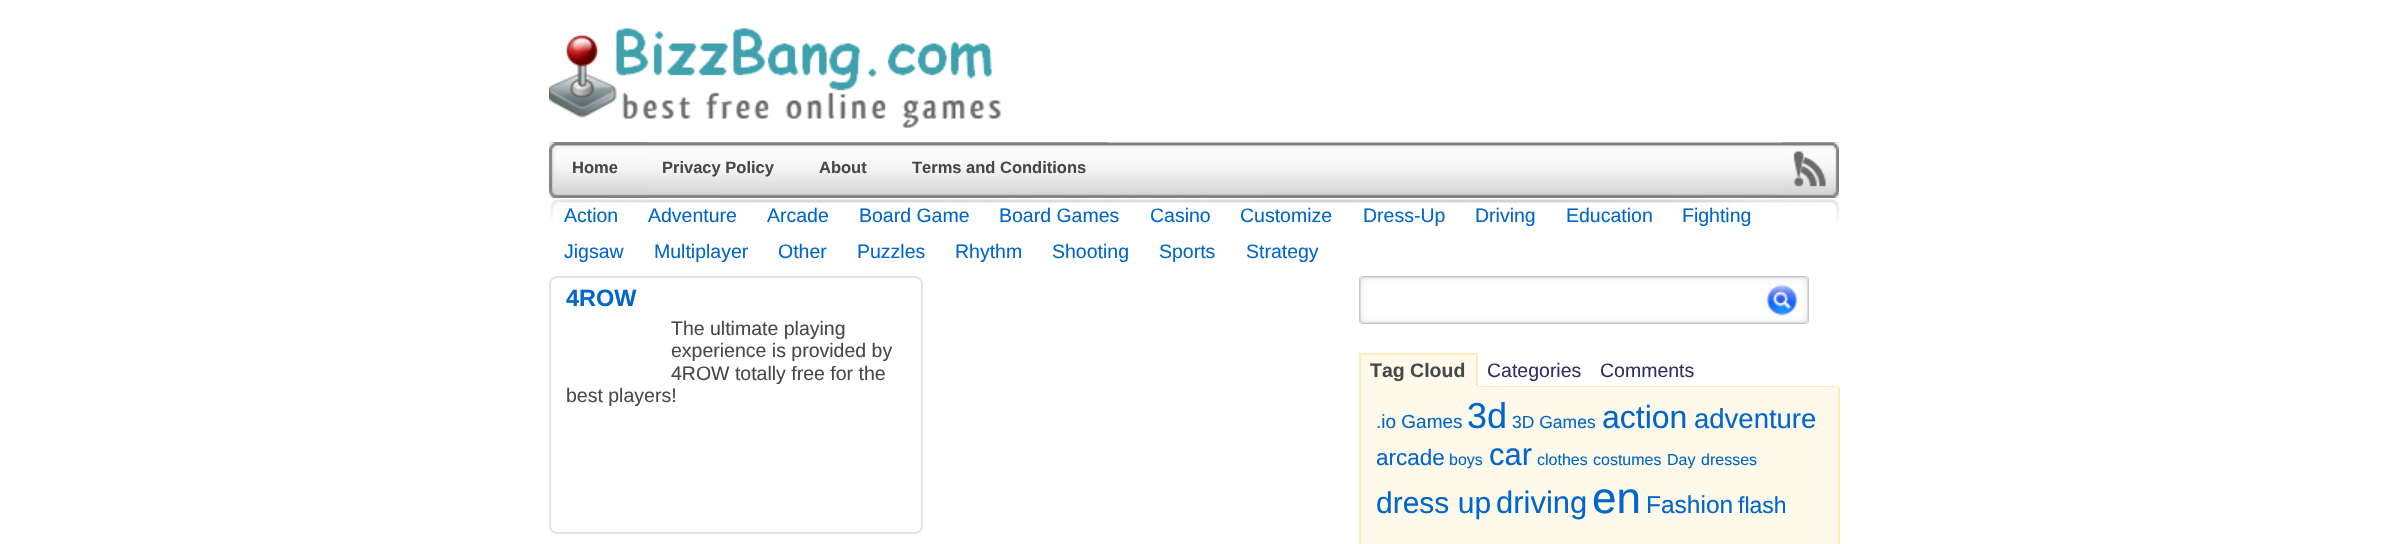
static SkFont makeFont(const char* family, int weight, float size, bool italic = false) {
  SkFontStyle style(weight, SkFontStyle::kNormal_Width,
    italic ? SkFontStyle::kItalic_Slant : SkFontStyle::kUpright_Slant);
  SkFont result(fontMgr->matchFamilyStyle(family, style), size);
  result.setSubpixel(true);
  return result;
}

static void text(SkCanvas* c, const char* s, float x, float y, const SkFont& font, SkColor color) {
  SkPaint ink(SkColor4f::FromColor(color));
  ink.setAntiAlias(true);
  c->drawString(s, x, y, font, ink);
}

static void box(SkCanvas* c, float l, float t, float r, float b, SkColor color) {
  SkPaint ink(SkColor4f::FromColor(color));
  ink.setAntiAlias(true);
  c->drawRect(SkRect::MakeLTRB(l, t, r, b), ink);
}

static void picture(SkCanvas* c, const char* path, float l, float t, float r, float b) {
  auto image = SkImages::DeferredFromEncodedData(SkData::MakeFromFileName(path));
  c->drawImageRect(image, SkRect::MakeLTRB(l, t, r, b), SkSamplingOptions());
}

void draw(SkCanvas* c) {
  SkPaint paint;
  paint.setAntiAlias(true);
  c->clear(0xffffffff);
  picture(c, "img_01.png", 549, 28, 1001, 128);
  picture(c, "img_02.png", 549, 142, 1839, 198);
  picture(c, "img_03.png", 549, 142, 650, 198);
  picture(c, "img_04.png", 549, 142, 641, 195);
  picture(c, "img_05.png", 549, 142, 641, 143);
  SkFont face1 = makeFont("Liberation Sans", 700, 16.5f);
  text(c, "Home", 572, 173, face1, 0xff474848);
  picture(c, "img_06.png", 640, 142, 797, 143);
  text(c, "Privacy Policy", 662, 173, face1, 0xff474848);
  picture(c, "img_07.png", 796, 142, 890, 143);
  text(c, "About", 819, 173, face1, 0xff474848);
  picture(c, "img_08.png", 889, 142, 1109, 143);
  text(c, "Terms and Conditions", 912, 173, face1, 0xff474848);
  picture(c, "img_09.png", 1782, 142, 1839, 198);
  picture(c, "img_10.png", 550, 199, 1839, 220);
  SkFont face2 = makeFont("Liberation Sans", 400, 19.5f);
  text(c, "Action", 564, 222, face2, 0xff0066cb);
  text(c, "Adventure", 648, 222, face2, 0xff0066cb);
  text(c, "Arcade", 767, 222, face2, 0xff0066cb);
  text(c, "Board Game", 859, 222, face2, 0xff0066cb);
  text(c, "Board Games", 999, 222, face2, 0xff0066cb);
  text(c, "Casino", 1150, 222, face2, 0xff0066cb);
  text(c, "Customize", 1240, 222, face2, 0xff0066cb);
  text(c, "Dress-Up", 1363, 222, face2, 0xff0066cb);
  text(c, "Driving", 1475, 222, face2, 0xff0066cb);
  text(c, "Education", 1566, 222, face2, 0xff0066cb);
  text(c, "Fighting", 1682, 222, face2, 0xff0066cb);
  text(c, "Jigsaw", 564, 258, face2, 0xff0066cb);
  text(c, "Multiplayer", 654, 258, face2, 0xff0066cb);
  text(c, "Other", 778, 258, face2, 0xff0066cb);
  text(c, "Puzzles", 857, 258, face2, 0xff0066cb);
  text(c, "Rhythm", 955, 258, face2, 0xff0066cb);
  text(c, "Shooting", 1052, 258, face2, 0xff0066cb);
  text(c, "Sports", 1159, 258, face2, 0xff0066cb);
  text(c, "Strategy", 1246, 258, face2, 0xff0066cb);
  paint.setStyle(SkPaint::kStroke_Style);
  paint.setStrokeWidth(2);
  paint.setColor(0xffe5e5e5);
  c->drawRoundRect(SkRect::MakeLTRB(550, 277, 922, 533), 7, 7, paint);
  SkFont face3 = makeFont("Liberation Sans", 700, 23.5f);
  text(c, "4ROW", 566, 306, face3, 0xff0066cb);
  text(c, "The ultimate playing", 671, 335, face2, 0xff474848);
  text(c, "experience is provided by", 671, 357, face2, 0xff474848);
  text(c, "4ROW totally free for the", 671, 380, face2, 0xff474848);
  text(c, "best players!", 566, 402, face2, 0xff474848);
  picture(c, "img_11.png", 1359, 276, 1761, 324);
  picture(c, "img_12.png", 1761, 276, 1809, 324);
  box(c, 1478, 386, 1839, 387, 0xfff8ecbd);
  box(c, 1361, 355, 1476, 386, 0xfffdf9eb);
  SkFont face4 = makeFont("Liberation Sans", 700, 19.5f);
  text(c, "Tag Cloud", 1370, 377, face4, 0xff474848);
  box(c, 1359, 353, 1478, 355, 0xfff8ecbd);
  box(c, 1476, 353, 1478, 387, 0xfff8ecbd);
  box(c, 1361, 387, 1838, 544, 0xfffdf9eb);
  box(c, 1359, 387, 1361, 544, 0xfff8ecbd);
  box(c, 1359, 386, 1478, 388, 0xfffdf9eb);
  box(c, 1359, 353, 1361, 387, 0xfff8ecbd);
  text(c, "Categories", 1487, 377, face2, 0xff313062);
  text(c, "Comments", 1600, 377, face2, 0xff313062);
  box(c, 1838, 387, 1840, 544, 0xfff8ecbd);
  SkFont face5 = makeFont("Liberation Sans", 400, 19);
  text(c, ".io Games", 1376, 428, face5, 0xff0066cb);
  SkFont face6 = makeFont("Liberation Sans", 400, 36);
  text(c, "3d", 1467, 428, face6, 0xff0066cb);
  SkFont face7 = makeFont("Liberation Sans", 400, 17.5f);
  text(c, "3D Games", 1512, 428, face7, 0xff0066cb);
  SkFont face8 = makeFont("Liberation Sans", 400, 32);
  text(c, "action", 1602, 428, face8, 0xff0066cb);
  SkFont face9 = makeFont("Liberation Sans", 400, 27.5f);
  text(c, "adventure", 1694, 428, face9, 0xff0066cb);
  SkFont face10 = makeFont("Liberation Sans", 400, 22.5f);
  text(c, "arcade", 1376, 465, face10, 0xff0066cb);
  SkFont face11 = makeFont("Liberation Sans", 400, 16);
  text(c, "boys", 1449, 465, face11, 0xff0066cb);
  SkFont face12 = makeFont("Liberation Sans", 400, 31);
  text(c, "car", 1489, 465, face12, 0xff0066cb);
  text(c, "clothes", 1537, 465, face11, 0xff0066cb);
  text(c, "costumes", 1593, 465, face11, 0xff0066cb);
  text(c, "Day", 1667, 465, face11, 0xff0066cb);
  text(c, "dresses", 1701, 465, face11, 0xff0066cb);
  SkFont face13 = makeFont("Liberation Sans", 400, 30);
  text(c, "dress up", 1376, 513, face13, 0xff0066cb);
  text(c, "driving", 1496, 513, face12, 0xff0066cb);
  SkFont face14 = makeFont("Liberation Sans", 400, 44);
  text(c, "en", 1592, 513, face14, 0xff0066cb);
  SkFont face15 = makeFont("Liberation Sans", 400, 24.5f);
  text(c, "Fashion", 1646, 513, face15, 0xff0066cb);
  SkFont face16 = makeFont("Liberation Sans", 400, 23);
  text(c, "flash", 1738, 513, face16, 0xff0066cb);
}
